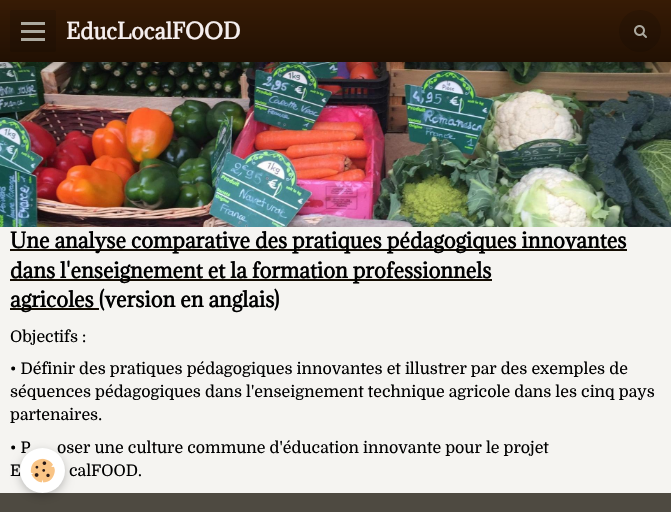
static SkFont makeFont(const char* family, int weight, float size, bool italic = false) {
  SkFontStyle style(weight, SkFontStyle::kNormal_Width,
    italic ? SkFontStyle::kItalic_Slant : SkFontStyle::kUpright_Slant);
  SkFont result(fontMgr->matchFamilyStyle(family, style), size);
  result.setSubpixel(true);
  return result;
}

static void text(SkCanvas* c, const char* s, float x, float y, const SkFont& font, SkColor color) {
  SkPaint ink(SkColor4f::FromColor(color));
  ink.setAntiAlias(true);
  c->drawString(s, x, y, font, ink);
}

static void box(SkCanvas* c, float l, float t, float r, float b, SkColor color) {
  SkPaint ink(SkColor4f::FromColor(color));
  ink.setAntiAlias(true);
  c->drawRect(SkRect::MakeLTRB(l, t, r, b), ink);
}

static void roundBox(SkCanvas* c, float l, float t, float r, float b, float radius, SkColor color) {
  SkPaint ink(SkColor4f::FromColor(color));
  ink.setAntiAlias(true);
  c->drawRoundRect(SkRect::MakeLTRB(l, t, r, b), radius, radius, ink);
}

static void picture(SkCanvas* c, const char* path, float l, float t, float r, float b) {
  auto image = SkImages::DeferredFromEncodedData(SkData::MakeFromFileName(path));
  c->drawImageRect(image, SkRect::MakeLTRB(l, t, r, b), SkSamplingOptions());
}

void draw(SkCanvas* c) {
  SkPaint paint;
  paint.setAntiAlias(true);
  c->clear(0xfff5f4f1);
  picture(c, "img_02.png", 0, 62, 671, 227);
  paint.setColor(0x1a000000);
  paint.setMaskFilter(SkMaskFilter::MakeBlur(kNormal_SkBlurStyle, 2.5f));
  c->drawRect(SkRect::MakeLTRB(0, 5, 671, 67), paint);
  paint.setMaskFilter(nullptr);
  {
    const SkColor colors[] = {0xff211003, 0xff371b05};
    const float stops[] = {0, 1};
    const SkPoint ends[] = {{336, 62}, {336, 0}};
    paint.setShader(SkGradientShader::MakeLinear(ends, colors, stops, 2, SkTileMode::kClamp));
    paint.setAlpha(255);
  }
  c->drawRect(SkRect::MakeLTRB(0, 0, 671, 62), paint);
  roundBox(c, 10, 10, 56, 52, 2, 0x26000000);
  box(c, 21, 30, 45, 33, 0xffaca99f);
  box(c, 21, 22, 45, 25, 0xffaca99f);
  box(c, 21, 38, 45, 41, 0xffaca99f);
  SkFont face1 = makeFont("Adamina", 700, 21);
  text(c, "EducLocalFOOD", 66, 39, face1, 0xfff5eeee);
  paint.setShader(nullptr);
  paint.setColor(0x26000000);
  c->drawCircle(640, 31, 21, paint);
  picture(c, "img_01.png", 634, 25, 647, 38);
  box(c, 10, 249, 627, 251, 0xff130c02);
  SkFont face2 = makeFont("Adamina", 700, 20);
  text(c, "Une analyse comparative des pratiques pédagogiques innovantes", 10, 248, face2, 0xff000000);
  box(c, 10, 279, 492, 281, 0xff130c02);
  text(c, "dans l'enseignement et la formation professionnels", 10, 278, face2, 0xff000000);
  box(c, 10, 308, 99, 310, 0xff130c02);
  text(c, "agricoles (version en anglais)", 10, 307, face2, 0xff000000);
  SkFont face3 = makeFont("Domine", 400, 16);
  text(c, "Objectifs :", 10, 342, face3, 0xff000000);
  text(c, "• Définir des pratiques pédagogiques innovantes et illustrer par des exemples de", 10, 374, face3, 0xff000000);
  text(c, "séquences pédagogiques dans l'enseignement technique agricole dans les cinq pays", 10, 397, face3, 0xff000000);
  text(c, "partenaires.", 10, 420, face3, 0xff000000);
  text(c, "• P", 10, 453, face3, 0xff000000);
  text(c, "oser une culture commune d'éducation innovante pour le projet", 57, 453, face3, 0xff000000);
  text(c, "E", 10, 476, face3, 0xff000000);
  text(c, "calFOOD.", 69, 476, face3, 0xff000000);
  box(c, 0, 493, 671, 512, 0xff4e4a41);
  paint.setColor(0x3d000000);
  paint.setMaskFilter(SkMaskFilter::MakeBlur(kNormal_SkBlurStyle, 5));
  c->drawRoundRect(SkRect::MakeLTRB(20, 451, 65, 496), 22.5f, 22.5f, paint);
  paint.setMaskFilter(nullptr);
  paint.setColor(0xffffffff);
  c->drawCircle(42.5f, 470.5f, 22.5f, paint);
  picture(c, "img_03.png", 30, 458, 55, 483);
}
